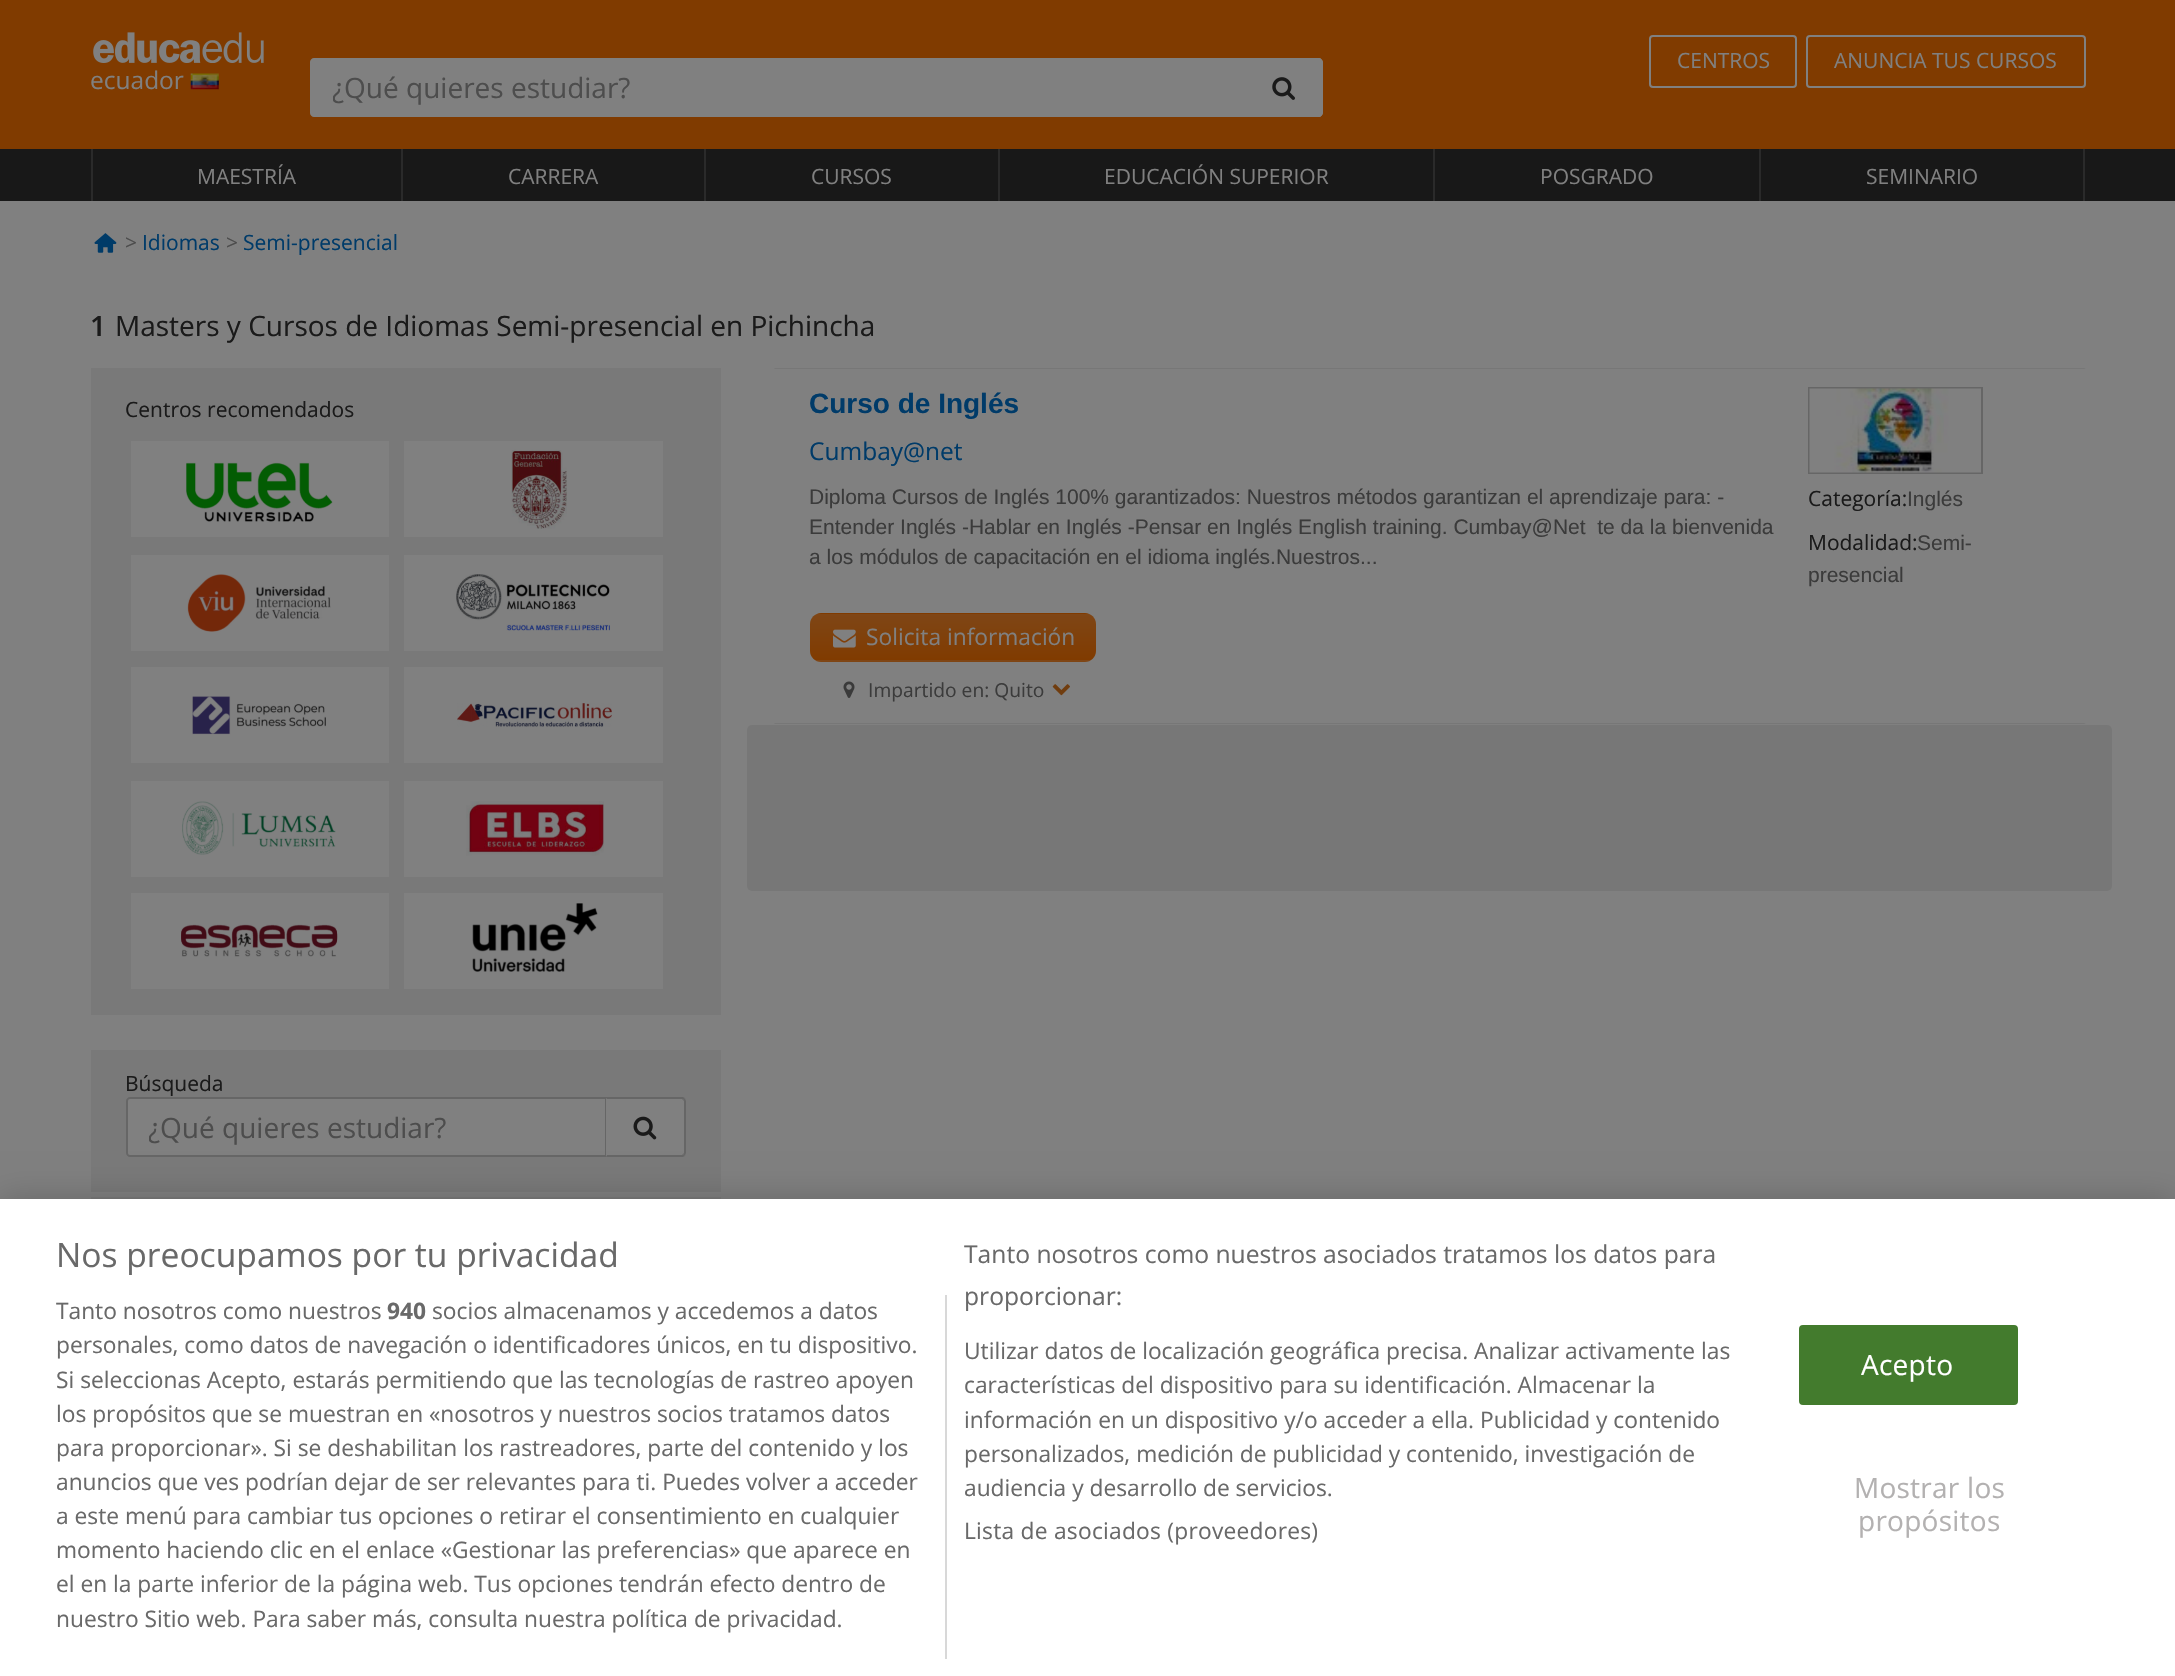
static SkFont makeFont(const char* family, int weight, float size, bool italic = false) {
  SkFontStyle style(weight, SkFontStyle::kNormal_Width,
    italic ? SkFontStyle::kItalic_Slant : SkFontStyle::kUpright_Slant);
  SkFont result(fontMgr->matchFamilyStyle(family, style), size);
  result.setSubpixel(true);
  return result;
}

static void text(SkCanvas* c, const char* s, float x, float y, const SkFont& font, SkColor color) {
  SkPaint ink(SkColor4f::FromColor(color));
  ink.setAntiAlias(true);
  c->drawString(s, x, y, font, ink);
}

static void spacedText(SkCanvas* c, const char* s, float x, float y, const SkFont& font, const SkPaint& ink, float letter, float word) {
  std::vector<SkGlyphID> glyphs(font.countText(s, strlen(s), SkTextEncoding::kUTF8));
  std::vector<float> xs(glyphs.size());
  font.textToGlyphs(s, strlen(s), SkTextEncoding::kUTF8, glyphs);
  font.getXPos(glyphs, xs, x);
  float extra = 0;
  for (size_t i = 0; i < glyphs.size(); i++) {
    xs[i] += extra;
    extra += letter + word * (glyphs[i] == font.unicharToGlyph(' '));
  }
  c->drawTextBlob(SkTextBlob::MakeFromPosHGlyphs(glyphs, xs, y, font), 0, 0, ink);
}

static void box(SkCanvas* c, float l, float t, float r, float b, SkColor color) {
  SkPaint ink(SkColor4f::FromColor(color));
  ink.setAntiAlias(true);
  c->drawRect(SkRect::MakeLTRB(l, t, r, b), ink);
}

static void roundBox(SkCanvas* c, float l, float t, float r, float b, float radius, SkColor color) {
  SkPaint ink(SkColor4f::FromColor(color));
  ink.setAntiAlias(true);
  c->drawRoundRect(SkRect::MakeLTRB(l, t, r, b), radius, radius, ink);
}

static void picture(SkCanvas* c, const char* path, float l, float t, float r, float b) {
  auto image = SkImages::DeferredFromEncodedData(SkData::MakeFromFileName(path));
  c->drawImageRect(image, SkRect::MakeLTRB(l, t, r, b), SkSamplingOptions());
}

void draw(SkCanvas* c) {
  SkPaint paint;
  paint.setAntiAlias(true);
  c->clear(0xff808080);
  box(c, 0, 0, 2175, 149, 0xff803b00);
  paint.setStyle(SkPaint::kStroke_Style);
  paint.setStrokeWidth(2);
  paint.setColor(0xff808080);
  c->drawRoundRect(SkRect::MakeLTRB(1650, 36, 1796, 87), 3, 3, paint);
  SkFont face1 = makeFont("Open Sans", 400, 21);
  text(c, "CENTROS", 1677, 68, face1, 0xff808080);
  c->drawRoundRect(SkRect::MakeLTRB(1807, 36, 2085, 87), 3, 3, paint);
  text(c, "ANUNCIA TUS CURSOS", 1834, 68, face1, 0xff808080);
  picture(c, "img_01.png", 93, 32, 264, 63);
  SkFont face2 = makeFont("Open Sans", 400, 24.5f);
  text(c, "ecuador", 90, 89, face2, 0xff808080);
  picture(c, "img_02.png", 190, 73, 219, 90);
  paint.setStyle(SkPaint::kFill_Style);
  c->drawPath(SkPathBuilder().moveTo(314, 59).lineTo(1245, 59).lineTo(1245, 116).lineTo(314, 116).cubicTo(312.5f, 116, 311, 114.5f, 311, 113).lineTo(311, 62).cubicTo(311, 60.5f, 312.5f, 59, 314, 59).close().detach(), paint);
  paint.setStyle(SkPaint::kStroke_Style);
  c->drawPath(SkPathBuilder().moveTo(314, 59).lineTo(1245, 59).lineTo(1245, 116).lineTo(314, 116).cubicTo(312.5f, 116, 311, 114.5f, 311, 113).lineTo(311, 62).cubicTo(311, 60.5f, 312.5f, 59, 314, 59).close().detach(), paint);
  c->save();
  c->clipRect(SkRect::MakeLTRB(333, 68, 1216, 107));
  SkFont face3 = makeFont("Open Sans", 400, 28);
  text(c, "¿Qué quieres estudiar?", 332, 98, face3, 0xff4d4d4d);
  c->restore();
  paint.setStyle(SkPaint::kFill_Style);
  c->drawPath(SkPathBuilder().moveTo(1244, 58).lineTo(1318, 58).cubicTo(1321, 58, 1323, 60, 1323, 63).lineTo(1323, 112).cubicTo(1323, 115, 1321, 117, 1318, 117).lineTo(1244, 117).close().detach(), paint);
  c->drawPath(SkPathBuilder().moveTo(1321, 59).cubicTo(1321, 58, 1319, 58, 1318, 58).lineTo(1244, 58).lineTo(1246, 60).cubicTo(1254, 60, 1318, 59, 1320, 61).close().detach(), paint);
  c->drawPath(SkPathBuilder().moveTo(1321, 59).cubicTo(1322, 60, 1323, 61, 1323, 63).lineTo(1323, 112).cubicTo(1323, 114, 1322, 115, 1321, 116).lineTo(1320, 115).cubicTo(1322, 112, 1321, 105, 1321, 104).lineTo(1321, 63).lineTo(1320, 61).close().detach(), paint);
  c->drawPath(SkPathBuilder().moveTo(1321, 116).cubicTo(1321, 117, 1319, 117, 1318, 117).lineTo(1244, 117).lineTo(1246, 116).lineTo(1318, 116).lineTo(1320, 115).close().detach(), paint);
  picture(c, "img_03.png", 1272, 77, 1295, 100);
  box(c, 0, 149, 2175, 201, 0xff181818);
  box(c, 401, 149, 403, 201, 0xff2a2a2a);
  box(c, 91, 149, 93, 201, 0xff2a2a2a);
  text(c, "MAESTRÍA", 197, 184, face1, 0xff808080);
  box(c, 704, 149, 706, 201, 0xff2a2a2a);
  text(c, "CARRERA", 508, 184, face1, 0xff808080);
  box(c, 998, 149, 1000, 201, 0xff2a2a2a);
  text(c, "CURSOS", 811, 184, face1, 0xff808080);
  box(c, 1433, 149, 1435, 201, 0xff2a2a2a);
  text(c, "EDUCACIÓN SUPERIOR", 1104, 184, face1, 0xff808080);
  box(c, 1759, 149, 1761, 201, 0xff2a2a2a);
  text(c, "POSGRADO", 1540, 184, face1, 0xff808080);
  box(c, 2083, 149, 2085, 201, 0xff2a2a2a);
  text(c, "SEMINARIO", 1866, 184, face1, 0xff808080);
  picture(c, "img_04.png", 94, 233, 117, 253);
  text(c, ">", 125, 250, face1, 0xff4d4d4d);
  text(c, "Idiomas", 142, 250, face1, 0xff003b69);
  text(c, ">", 226, 250, face1, 0xff4d4d4d);
  text(c, "Semi-presencial", 243, 250, face1, 0xff003b69);
  SkFont face4 = makeFont("Open Sans", 600, 28);
  text(c, "1", 90, 336, face4, 0xff1a1a1a);
  text(c, "Masters y Cursos de Idiomas Semi-presencial en Pichincha", 115, 336, face3, 0xff1a1a1a);
  box(c, 91, 368, 721, 1015, 0xff797979);
  text(c, "Centros recomendados", 125, 417, face1, 0xff1a1a1a);
  box(c, 131, 441, 389, 537, 0xff808080);
  picture(c, "img_05.png", 186, 462, 333, 522);
  box(c, 404, 441, 663, 537, 0xff808080);
  picture(c, "img_06.png", 511, 449, 567, 529);
  box(c, 131, 555, 389, 651, 0xff808080);
  picture(c, "img_07.png", 187, 574, 331, 632);
  box(c, 404, 555, 663, 651, 0xff808080);
  picture(c, "img_08.png", 456, 574, 610, 631);
  box(c, 131, 667, 389, 763, 0xff808080);
  picture(c, "img_09.png", 192, 696, 326, 735);
  box(c, 404, 667, 663, 763, 0xff808080);
  picture(c, "img_10.png", 457, 703, 612, 727);
  box(c, 131, 781, 389, 877, 0xff808080);
  picture(c, "img_11.png", 182, 801, 336, 855);
  box(c, 404, 781, 663, 877, 0xff808080);
  picture(c, "img_12.png", 466, 801, 604, 856);
  box(c, 131, 893, 389, 989, 0xff808080);
  picture(c, "img_13.png", 181, 924, 338, 957);
  box(c, 404, 893, 663, 989, 0xff808080);
  picture(c, "img_14.png", 472, 903, 598, 972);
  box(c, 91, 1050, 721, 1199, 0xff797979);
  box(c, 91, 1192, 721, 1197, 0xff808080);
  text(c, "Búsqueda", 125, 1091, face1, 0xff1a1a1a);
  c->drawPath(SkPathBuilder().moveTo(130, 1098).lineTo(606, 1098).lineTo(606, 1156).lineTo(130, 1156).cubicTo(128.5f, 1156, 127, 1154.5f, 127, 1153).lineTo(127, 1101).cubicTo(127, 1099.5f, 128.5f, 1098, 130, 1098).close().detach(), paint);
  paint.setStyle(SkPaint::kStroke_Style);
  paint.setColor(0xff666666);
  c->drawPath(SkPathBuilder().moveTo(130, 1098).lineTo(606, 1098).lineTo(606, 1156).lineTo(130, 1156).cubicTo(128.5f, 1156, 127, 1154.5f, 127, 1153).lineTo(127, 1101).cubicTo(127, 1099.5f, 128.5f, 1098, 130, 1098).close().detach(), paint);
  c->save();
  c->clipRect(SkRect::MakeLTRB(149, 1108, 585, 1146));
  text(c, "¿Qué quieres estudiar?", 148, 1138, face3, 0xff4d4d4d);
  c->restore();
  paint.setStyle(SkPaint::kFill_Style);
  paint.setColor(0xff808080);
  c->drawPath(SkPathBuilder().moveTo(606, 1097).lineTo(682, 1097).cubicTo(684, 1097, 686, 1099, 686, 1101).lineTo(686, 1153).cubicTo(686, 1155, 684, 1157, 682, 1157).lineTo(606, 1157).close().detach(), paint);
  paint.setColor(0xff666666);
  c->drawPath(SkPathBuilder().moveTo(606, 1098).lineTo(606, 1097).lineTo(683, 1097).lineTo(685, 1098).lineTo(683, 1100).lineTo(682, 1099).lineTo(607, 1099).close().detach(), paint);
  c->drawPath(SkPathBuilder().moveTo(686, 1153).lineTo(686, 1101).lineTo(685, 1098).lineTo(683, 1100).lineTo(684, 1101).lineTo(684, 1153).lineTo(683, 1154).lineTo(685, 1156).close().detach(), paint);
  c->drawPath(SkPathBuilder().moveTo(606, 1157).lineTo(607, 1155).lineTo(682, 1155).lineTo(683, 1154).lineTo(685, 1156).lineTo(683, 1157).close().detach(), paint);
  picture(c, "img_15.png", 633, 1116, 657, 1140);
  paint.setColor(0xff777777);
  c->drawPath(SkPathBuilder().moveTo(774, 368).lineTo(2086, 368).lineTo(2084, 369).lineTo(775, 369).close().detach(), paint);
  c->drawPath(SkPathBuilder().moveTo(2086, 724).lineTo(774, 724).lineTo(775, 723).lineTo(2084, 723).close().detach(), paint);
  SkFont face5 = makeFont("Liberation Sans", 700, 28);
  text(c, "Curso de Inglés", 809, 413, face5, 0xff003b69);
  text(c, "Cumbay@net", 809, 460, face2, 0xff003b69);
  paint.setStyle(SkPaint::kStroke_Style);
  paint.setColor(0xff666666);
  c->drawRect(SkRect::MakeLTRB(1809, 388, 1982, 473), paint);
  picture(c, "img_16.png", 1809, 388, 1981, 473);
  SkFont face6 = makeFont("Liberation Sans", 400, 21);
  text(c, "Diploma Cursos de Inglés 100% garantizados: Nuestros métodos garantizan el aprendizaje para: -", 809, 504, face6, 0xff3b3b3b);
  text(c, "Entender Inglés -Hablar en Inglés -Pensar en Inglés English training. Cumbay@Net  te da la bienvenida", 809, 534, face6, 0xff3b3b3b);
  text(c, "a los módulos de capacitación en el idioma inglés.Nuestros...", 809, 564, face6, 0xff3b3b3b);
  text(c, "Categoría:", 1808, 506, face1, 0xff1a1a1a);
  text(c, "Inglés", 1907, 506, face6, 0xff3b3b3b);
  text(c, "Modalidad:", 1808, 550, face1, 0xff1a1a1a);
  text(c, "Semi-", 1917, 550, face6, 0xff3b3b3b);
  text(c, "presencial", 1808, 582, face6, 0xff3b3b3b);
  c->save();
  c->clipPath(SkPathBuilder().moveTo(821, 613).lineTo(1085, 613).cubicTo(1091, 613, 1096, 618, 1096, 624).lineTo(1096, 651).cubicTo(1096, 657, 1091, 662, 1085, 662).lineTo(821, 662).cubicTo(815, 662, 810, 657, 810, 651).lineTo(810, 624).cubicTo(810, 618, 815, 613, 821, 613).close().detach(), true);
  paint.setStyle(SkPaint::kFill_Style);
  {
    const SkColor colors[] = {0xff7f4616, 0xff803b00};
    const float stops[] = {0, 1};
    const SkPoint ends[] = {{953, 569}, {953, 614}};
    paint.setShader(SkGradientShader::MakeLinear(ends, colors, stops, 2, SkTileMode::kClamp));
    paint.setAlpha(255);
  }
  c->drawRect(SkRect::MakeLTRB(810, 613, 1096, 614), paint);
  {
    const SkColor colors[] = {0xff7f4616, 0xff803b00};
    const float stops[] = {0, 1};
    const SkPoint ends[] = {{953, 614}, {953, 660}};
    paint.setShader(SkGradientShader::MakeLinear(ends, colors, stops, 2, SkTileMode::kClamp));
    paint.setAlpha(255);
  }
  c->drawRect(SkRect::MakeLTRB(810, 614, 1096, 660), paint);
  {
    const SkColor colors[] = {0xff7f4616, 0xff803b00};
    const float stops[] = {0, 1};
    const SkPoint ends[] = {{953, 660}, {953, 705}};
    paint.setShader(SkGradientShader::MakeLinear(ends, colors, stops, 2, SkTileMode::kClamp));
    paint.setAlpha(255);
  }
  c->drawRect(SkRect::MakeLTRB(810, 660, 1096, 662), paint);
  c->restore();
  picture(c, "img_17.png", 833, 629, 856, 648);
  SkFont face7 = makeFont("Open Sans", 400, 22.75f);
  text(c, "Solicita información", 866, 645, face7, 0xff808080);
  picture(c, "img_18.png", 843, 681, 855, 698);
  SkFont face8 = makeFont("Open Sans", 400, 19.25f);
  text(c, "Impartido en: Quito", 868, 697, face8, 0xff3b3b3b);
  picture(c, "img_19.png", 1052, 684, 1070, 696);
  roundBox(c, 747, 725, 2112, 891, 5, 0xff777777);
  paint.setShader(nullptr);
  paint.setColor(0x33000000);
  paint.setMaskFilter(SkMaskFilter::MakeBlur(kNormal_SkBlurStyle, 16));
  c->drawRect(SkRect::MakeLTRB(0, 1199, 2175, 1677), paint);
  paint.setMaskFilter(nullptr);
  box(c, 0, 1199, 2175, 1676, 0xffffffff);
  SkFont face9 = makeFont("Open Sans", 400, 33.6f);
  text(c, "Nos preocupamos por tu privacidad", 56, 1267, face9, 0xff696969);
  SkFont face10 = makeFont("Open Sans", 400, 24.65f);
  text(c, "Tanto nosotros como nuestros asociados tratamos los datos para", 964, 1263, face10, 0xff696969);
  text(c, "proporcionar:", 964, 1305, face10, 0xff696969);
  text(c, "Utilizar datos de localización geográfica precisa. Analizar activamente las", 964, 1359, face7, 0xff696969);
  text(c, "características del dispositivo para su identificación. Almacenar la", 964, 1393, face7, 0xff696969);
  text(c, "información en un dispositivo y/o acceder a ella. Publicidad y contenido", 964, 1428, face7, 0xff696969);
  text(c, "personalizados, medición de publicidad y contenido, investigación de", 964, 1462, face7, 0xff696969);
  text(c, "audiencia y desarrollo de servicios.", 964, 1496, face7, 0xff696969);
  paint.setColor(0xff696969);
  spacedText(c, "Lista de asociados (proveedores)", 964, 1539, face7, paint, 0.25f, 0);
  box(c, 945, 1295, 947, 1659, 0xffd8d8d8);
  text(c, "Tanto nosotros como nuestros", 56, 1319, face7, 0xff696969);
  SkFont face11 = makeFont("Open Sans", 700, 22.75f);
  text(c, "940", 387, 1319, face11, 0xff696969);
  text(c, "socios almacenamos y accedemos a datos", 432, 1319, face7, 0xff696969);
  text(c, "personales, como datos de navegación o identificadores únicos, en tu dispositivo.", 56, 1353, face7, 0xff696969);
  text(c, "Si seleccionas Acepto, estarás permitiendo que las tecnologías de rastreo apoyen", 56, 1388, face7, 0xff696969);
  text(c, "los propósitos que se muestran en «nosotros y nuestros socios tratamos datos", 56, 1422, face7, 0xff696969);
  text(c, "para proporcionar». Si se deshabilitan los rastreadores, parte del contenido y los", 56, 1456, face7, 0xff696969);
  text(c, "anuncios que ves podrían dejar de ser relevantes para ti. Puedes volver a acceder", 56, 1490, face7, 0xff696969);
  text(c, "a este menú para cambiar tus opciones o retirar el consentimiento en cualquier", 56, 1524, face7, 0xff696969);
  text(c, "momento haciendo clic en el enlace «Gestionar las preferencias» que aparece en", 56, 1558, face7, 0xff696969);
  text(c, "el en la parte inferior de la página web. Tus opciones tendrán efecto dentro de", 56, 1592, face7, 0xff696969);
  text(c, "nuestro Sitio web. Para saber más, consulta nuestra política de privacidad.", 56, 1627, face7, 0xff696969);
  paint.setColor(0xff437b2d);
  c->drawRoundRect(SkRect::MakeLTRB(1800, 1326, 2017, 1404), 3, 3, paint);
  paint.setStyle(SkPaint::kStroke_Style);
  c->drawRoundRect(SkRect::MakeLTRB(1800, 1326, 2017, 1404), 3, 3, paint);
  paint.setStyle(SkPaint::kFill_Style);
  paint.setColor(0xffffffff);
  spacedText(c, "Acepto", 1861, 1375, face3, paint, 0.25f, 0);
  paint.setColor(0xffb3b1b1);
  spacedText(c, "Mostrar los", 1854, 1498, face3, paint, 0.25f, 0);
  spacedText(c, "propósitos", 1858, 1531, face3, paint, 0.25f, 0);
}
